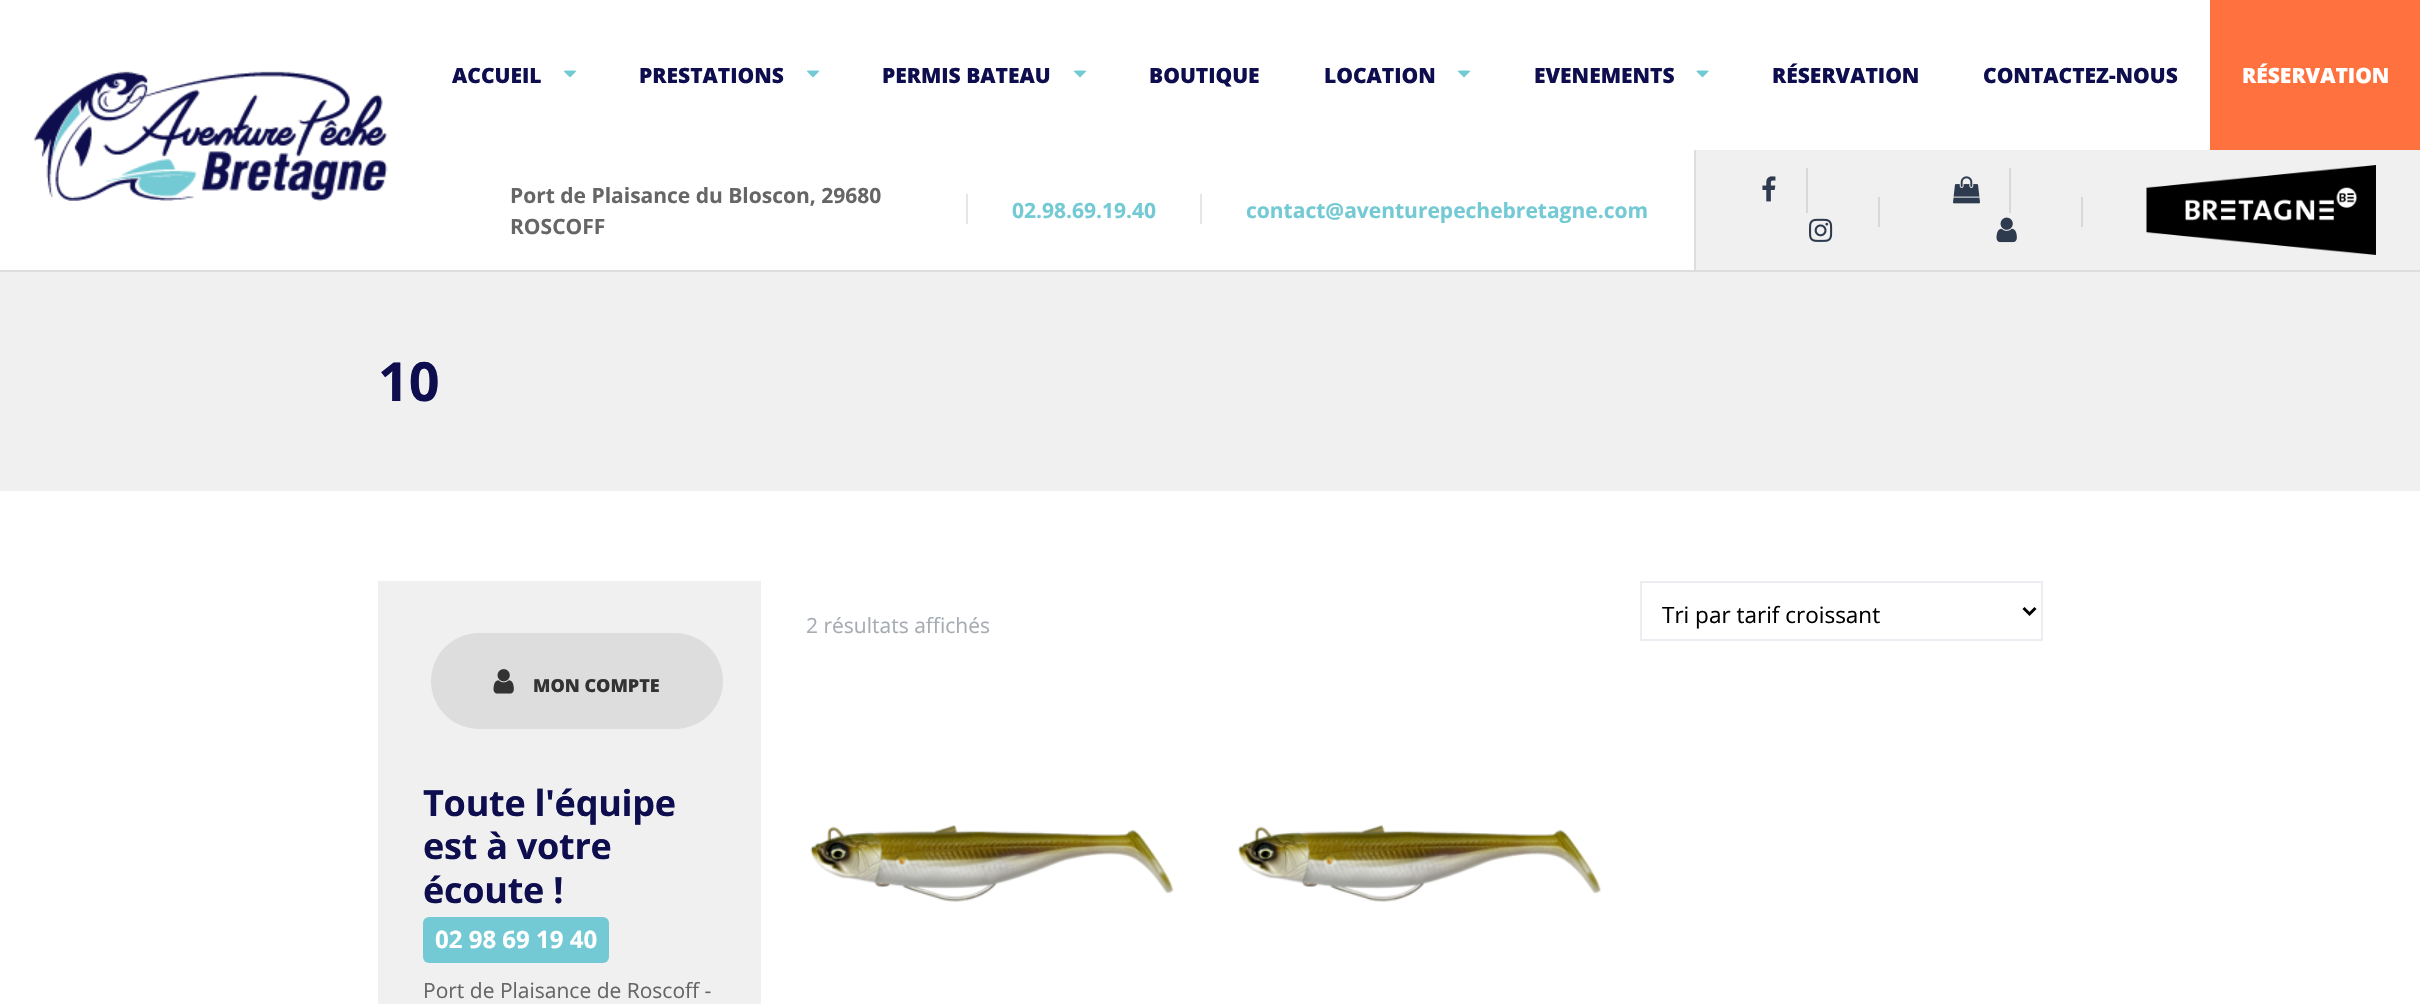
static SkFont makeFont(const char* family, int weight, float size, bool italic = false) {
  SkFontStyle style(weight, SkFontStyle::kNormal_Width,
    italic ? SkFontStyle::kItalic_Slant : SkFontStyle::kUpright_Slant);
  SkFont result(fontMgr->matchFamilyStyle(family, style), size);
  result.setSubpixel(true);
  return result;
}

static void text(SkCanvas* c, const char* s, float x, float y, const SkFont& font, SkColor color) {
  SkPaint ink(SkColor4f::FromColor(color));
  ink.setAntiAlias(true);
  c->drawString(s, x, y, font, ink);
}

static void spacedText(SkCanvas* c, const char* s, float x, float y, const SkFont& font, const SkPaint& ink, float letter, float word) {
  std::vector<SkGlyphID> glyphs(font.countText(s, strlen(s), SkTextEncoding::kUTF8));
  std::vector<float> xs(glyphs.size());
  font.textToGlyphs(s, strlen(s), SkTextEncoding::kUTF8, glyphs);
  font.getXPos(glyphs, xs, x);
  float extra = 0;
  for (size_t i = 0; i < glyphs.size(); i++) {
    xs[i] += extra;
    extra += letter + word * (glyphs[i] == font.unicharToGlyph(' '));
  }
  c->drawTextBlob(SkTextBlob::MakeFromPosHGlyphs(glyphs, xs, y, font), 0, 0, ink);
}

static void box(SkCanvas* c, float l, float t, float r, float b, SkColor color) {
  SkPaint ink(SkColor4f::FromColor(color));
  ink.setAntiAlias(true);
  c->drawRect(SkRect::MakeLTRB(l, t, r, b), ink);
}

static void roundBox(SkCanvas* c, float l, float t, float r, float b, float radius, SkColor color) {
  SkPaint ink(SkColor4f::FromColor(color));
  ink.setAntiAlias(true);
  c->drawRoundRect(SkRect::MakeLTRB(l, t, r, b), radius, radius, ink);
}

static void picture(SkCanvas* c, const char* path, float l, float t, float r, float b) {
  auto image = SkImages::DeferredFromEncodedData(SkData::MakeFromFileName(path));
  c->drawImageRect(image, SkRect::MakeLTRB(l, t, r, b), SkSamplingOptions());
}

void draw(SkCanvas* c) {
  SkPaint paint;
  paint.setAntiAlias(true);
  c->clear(0xffffffff);
  box(c, 0, 270, 2420, 272, 0xffdddddd);
  picture(c, "img_01.png", 34, 71, 388, 201);
  SkFont face1 = makeFont("Open Sans", 800, 21);
  text(c, "ACCUEIL", 452, 83, face1, 0xff0e0e4f);
  picture(c, "img_02.png", 564, 70, 576, 78);
  text(c, "PRESTATIONS", 639, 83, face1, 0xff0e0e4f);
  picture(c, "img_02.png", 807, 70, 819, 78);
  text(c, "PERMIS BATEAU", 882, 83, face1, 0xff0e0e4f);
  picture(c, "img_02.png", 1074, 70, 1086, 78);
  text(c, "BOUTIQUE", 1149, 83, face1, 0xff0e0e4f);
  text(c, "LOCATION", 1324, 83, face1, 0xff0e0e4f);
  picture(c, "img_02.png", 1458, 70, 1470, 78);
  text(c, "EVENEMENTS", 1534, 83, face1, 0xff0e0e4f);
  picture(c, "img_03.png", 1696, 70, 1709, 78);
  text(c, "RÉSERVATION", 1772, 83, face1, 0xff0e0e4f);
  text(c, "CONTACTEZ-NOUS", 1983, 83, face1, 0xff0e0e4f);
  box(c, 2210, 0, 2420, 150, 0xffff713f);
  text(c, "RÉSERVATION", 2242, 83, face1, 0xffffffff);
  SkFont face2 = makeFont("Open Sans", 700, 21);
  text(c, "Port de Plaisance du Bloscon, 29680", 510, 203, face2, 0xff666666);
  text(c, "ROSCOFF", 510, 234, face2, 0xff666666);
  box(c, 966, 194, 968, 224, 0xffe6e6e6);
  text(c, "02.98.69.19.40", 1012, 218, face2, 0xff74cad4);
  box(c, 1200, 194, 1202, 224, 0xffe6e6e6);
  text(c, "contact@aventurepechebretagne.com", 1246, 218, face2, 0xff74cad4);
  box(c, 1696, 150, 2420, 270, 0xfff0f0f0);
  box(c, 1694, 150, 1696, 270, 0xffdddddd);
  picture(c, "img_04.png", 1762, 176, 1776, 202);
  box(c, 1806, 168, 1808, 213, 0xffd8d8d8);
  picture(c, "img_05.png", 1809, 218, 1833, 242);
  box(c, 1878, 197, 1880, 227, 0xffd8d8d8);
  picture(c, "img_06.png", 1953, 176, 1980, 204);
  box(c, 2009, 168, 2011, 213, 0xffd8d8d8);
  picture(c, "img_07.png", 1996, 217, 2017, 243);
  box(c, 2081, 197, 2083, 227, 0xffd8d8d8);
  picture(c, "img_08.png", 2146, 165, 2376, 255);
  box(c, 0, 272, 2420, 491, 0xfff0f0f0);
  SkFont face3 = makeFont("Open Sans", 700, 54);
  paint.setColor(0xff0e0e4f);
  spacedText(c, "10", 378, 401, face3, paint, -0.25f, 0);
  SkFont face4 = makeFont("Open Sans", 400, 21);
  text(c, "2 résultats affichés", 806, 633, face4, 0xffa6acb2);
  paint.setStyle(SkPaint::kStroke_Style);
  paint.setStrokeWidth(2);
  paint.setColor(0xffebedf2);
  c->drawRect(SkRect::MakeLTRB(1641, 582, 2042, 640), paint);
  paint.setStrokeWidth(3);
  paint.setColor(0xff000000);
  c->drawPath(SkPathBuilder().moveTo(2023.5f, 608).lineTo(2029.5f, 614).lineTo(2035.5f, 608).detach(), paint);
  SkFont face5 = makeFont("Open Sans", 400, 22.5f);
  text(c, "Tri par tarif croissant", 1662, 623, face5, 0xff000000);
  picture(c, "img_09.png", 810, 825, 1174, 902);
  picture(c, "img_10.png", 1238, 825, 1602, 902);
  box(c, 378, 581, 761, 1004, 0xfff0f0f0);
  roundBox(c, 431, 633, 723, 729, 48, 0xffdddddd);
  picture(c, "img_11.png", 493, 669, 514, 694);
  SkFont face6 = makeFont("Open Sans", 800, 18);
  text(c, "MON COMPTE", 533, 692, face6, 0xff333333);
  SkFont face7 = makeFont("Open Sans", 700, 36);
  paint.setStyle(SkPaint::kFill_Style);
  paint.setColor(0xff0e0e4f);
  spacedText(c, "Toute l'équipe", 423, 816, face7, paint, -0.25f, 0);
  spacedText(c, "est à votre", 423, 859, face7, paint, -0.25f, 0);
  spacedText(c, "écoute !", 423, 903, face7, paint, -0.25f, 0);
  roundBox(c, 423, 917, 609, 963, 6, 0xff74cad4);
  SkFont face8 = makeFont("Open Sans", 700, 24);
  text(c, "02 98 69 19 40", 435, 948, face8, 0xffffffff);
  text(c, "Port de Plaisance de Roscoff -", 423, 998, face4, 0xff666666);
}
